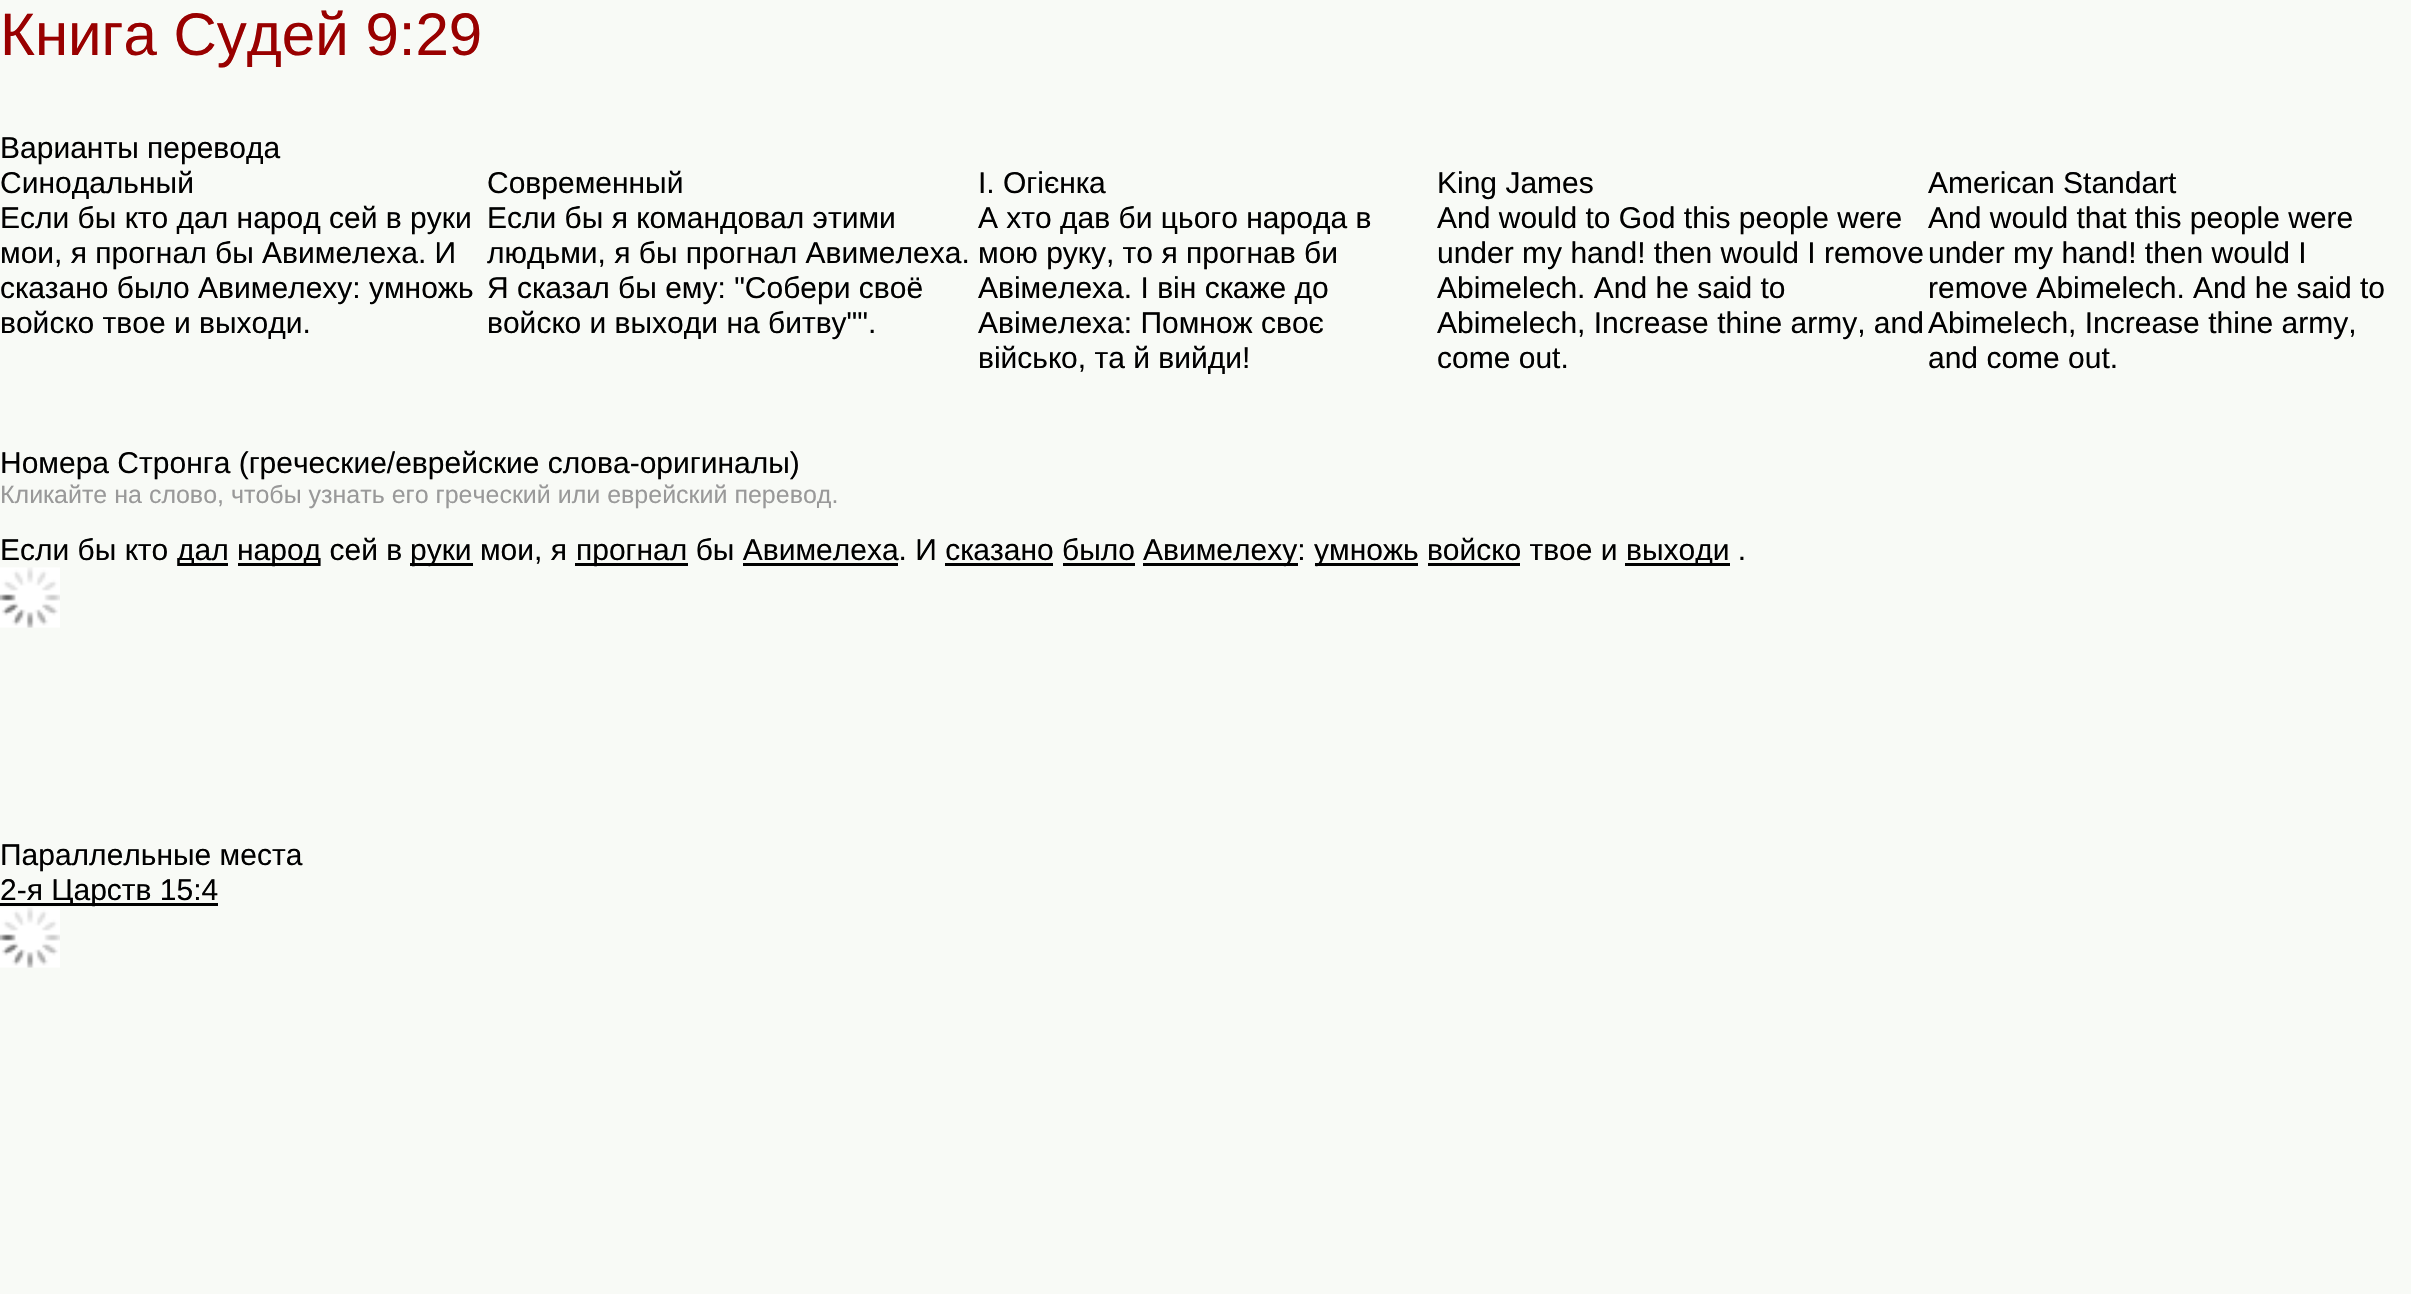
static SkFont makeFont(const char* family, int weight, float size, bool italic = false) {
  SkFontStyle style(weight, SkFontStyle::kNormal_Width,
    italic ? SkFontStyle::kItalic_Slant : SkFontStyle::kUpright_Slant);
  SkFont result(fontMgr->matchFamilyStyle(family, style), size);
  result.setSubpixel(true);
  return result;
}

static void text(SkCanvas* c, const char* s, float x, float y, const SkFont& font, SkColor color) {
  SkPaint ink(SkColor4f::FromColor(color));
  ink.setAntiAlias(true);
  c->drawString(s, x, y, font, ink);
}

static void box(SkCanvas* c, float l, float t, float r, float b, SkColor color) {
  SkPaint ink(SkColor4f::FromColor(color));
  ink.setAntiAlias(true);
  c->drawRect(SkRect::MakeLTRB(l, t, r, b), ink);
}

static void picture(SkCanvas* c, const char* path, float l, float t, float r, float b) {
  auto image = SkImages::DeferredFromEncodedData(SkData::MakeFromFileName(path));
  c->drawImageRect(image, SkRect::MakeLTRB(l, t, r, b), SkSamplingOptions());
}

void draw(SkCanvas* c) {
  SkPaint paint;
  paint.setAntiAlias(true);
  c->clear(0xfff8faf6);
  SkFont face1 = makeFont("Liberation Sans", 400, 60);
  text(c, "Книга Судей 9:29", 0, 55, face1, 0xff990000);
  SkFont face2 = makeFont("Liberation Sans", 400, 30);
  text(c, "Варианты перевода", 0, 158, face2, 0xff000000);
  text(c, "Синодальный", 0, 193, face2, 0xff000000);
  text(c, "Если бы кто дал народ сей в руки", 0, 228, face2, 0xff000000);
  text(c, "мои, я прогнал бы Авимелеха. И", 0, 263, face2, 0xff000000);
  text(c, "сказано было Авимелеху: умножь", 0, 298, face2, 0xff000000);
  text(c, "войско твое и выходи.", 0, 333, face2, 0xff000000);
  text(c, "Современный", 487, 193, face2, 0xff000000);
  text(c, "Если бы я командовал этими", 487, 228, face2, 0xff000000);
  text(c, "людьми, я бы прогнал Авимелеха.", 487, 263, face2, 0xff000000);
  text(c, "Я сказал бы ему: \"Собери своё", 487, 298, face2, 0xff000000);
  text(c, "войско и выходи на битву\"\".", 487, 333, face2, 0xff000000);
  text(c, "I. Oгієнка", 978, 193, face2, 0xff000000);
  text(c, "А хто дав би цього народа в", 978, 228, face2, 0xff000000);
  text(c, "мою руку, то я прогнав би", 978, 263, face2, 0xff000000);
  text(c, "Авімелеха. І він скаже до", 978, 298, face2, 0xff000000);
  text(c, "Авімелеха: Помнож своє", 978, 333, face2, 0xff000000);
  text(c, "військо, та й вийди!", 978, 368, face2, 0xff000000);
  text(c, "King James", 1437, 193, face2, 0xff000000);
  text(c, "And would to God this people were", 1437, 228, face2, 0xff000000);
  text(c, "under my hand! then would I remove", 1437, 263, face2, 0xff000000);
  text(c, "Abimelech. And he said to", 1437, 298, face2, 0xff000000);
  text(c, "Abimelech, Increase thine army, and", 1437, 333, face2, 0xff000000);
  text(c, "come out.", 1437, 368, face2, 0xff000000);
  text(c, "American Standart", 1928, 193, face2, 0xff000000);
  text(c, "And would that this people were", 1928, 228, face2, 0xff000000);
  text(c, "under my hand! then would I", 1928, 263, face2, 0xff000000);
  text(c, "remove Abimelech. And he said to", 1928, 298, face2, 0xff000000);
  text(c, "Abimelech, Increase thine army,", 1928, 333, face2, 0xff000000);
  text(c, "and come out.", 1928, 368, face2, 0xff000000);
  text(c, "Номера Стронга (греческие/еврейские слова-оригиналы)", 0, 473, face2, 0xff000000);
  SkFont face3 = makeFont("Liberation Sans", 400, 25);
  text(c, "Кликайте на слово, чтобы узнать его греческий или еврейский перевод.", 0, 503, face3, 0xff999999);
  text(c, "Если бы кто", 0, 560, face2, 0xff000000);
  box(c, 178, 563, 228, 566, 0xff000000);
  text(c, "дал", 177, 560, face2, 0xff000000);
  box(c, 238, 563, 320, 566, 0xff000000);
  text(c, "народ сей в", 237, 560, face2, 0xff000000);
  box(c, 410, 563, 473, 566, 0xff000000);
  text(c, "руки мои, я", 410, 560, face2, 0xff000000);
  box(c, 575, 563, 688, 566, 0xff000000);
  text(c, "прогнал бы Авимелеха. И сказано было", 576, 560, face2, 0xff000000);
  box(c, 1143, 563, 1298, 566, 0xff000000);
  text(c, "Авимелеху:", 1143, 560, face2, 0xff000000);
  box(c, 1315, 563, 1418, 566, 0xff000000);
  text(c, "умножь войско твое и", 1314, 560, face2, 0xff000000);
  box(c, 1625, 563, 1730, 566, 0xff000000);
  text(c, "выходи .", 1626, 560, face2, 0xff000000);
  box(c, 743, 563, 898, 566, 0xff000000);
  box(c, 945, 563, 1053, 566, 0xff000000);
  box(c, 1063, 563, 1135, 566, 0xff000000);
  box(c, 1428, 563, 1520, 566, 0xff000000);
  picture(c, "img_01.png", 0, 567, 60, 628);
  text(c, "Параллельные места", 0, 865, face2, 0xff000000);
  box(c, 0, 903, 218, 906, 0xff000000);
  text(c, "2-я Царств 15:4", 0, 900, face2, 0xff000000);
  picture(c, "img_02.png", 0, 907, 60, 968);
}
